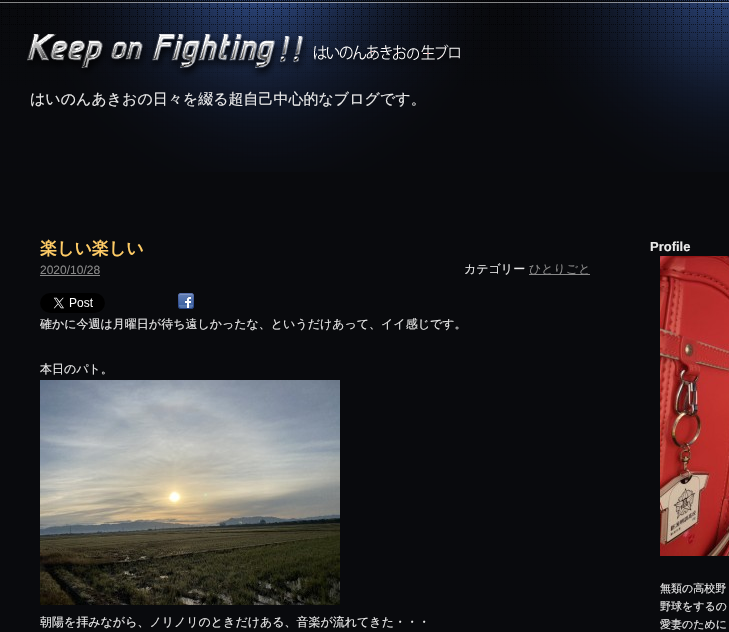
static SkFont makeFont(const char* family, int weight, float size, bool italic = false) {
  SkFontStyle style(weight, SkFontStyle::kNormal_Width,
    italic ? SkFontStyle::kItalic_Slant : SkFontStyle::kUpright_Slant);
  SkFont result(fontMgr->matchFamilyStyle(family, style), size);
  result.setSubpixel(true);
  return result;
}

static void text(SkCanvas* c, const char* s, float x, float y, const SkFont& font, SkColor color) {
  SkPaint ink(SkColor4f::FromColor(color));
  ink.setAntiAlias(true);
  c->drawString(s, x, y, font, ink);
}

static void box(SkCanvas* c, float l, float t, float r, float b, SkColor color) {
  SkPaint ink(SkColor4f::FromColor(color));
  ink.setAntiAlias(true);
  c->drawRect(SkRect::MakeLTRB(l, t, r, b), ink);
}

static void picture(SkCanvas* c, const char* path, float l, float t, float r, float b) {
  auto image = SkImages::DeferredFromEncodedData(SkData::MakeFromFileName(path));
  c->drawImageRect(image, SkRect::MakeLTRB(l, t, r, b), SkSamplingOptions());
}

void draw(SkCanvas* c) {
  SkPaint paint;
  paint.setAntiAlias(true);
  c->clear(0xff090a0d);
  picture(c, "img_01.png", 0, 0, 729, 172);
  picture(c, "img_02.png", 27, 33, 460, 77);
  SkFont face1 = makeFont("WenQuanYi Zen Hei", 500, 15);
  text(c, "はいのんあきおの日々を綴る超自己中心的なブログです。", 30, 104, face1, 0xffeaeaea);
  SkFont face2 = makeFont("WenQuanYi Zen Hei", 700, 17);
  text(c, "楽しい楽しい", 40, 254, face2, 0xffffcc66);
  SkFont face3 = makeFont("Liberation Sans", 400, 12);
  text(c, "2020/10/28", 40, 274, face3, 0xff888888);
  box(c, 40, 275, 100, 276, 0xff888888);
  SkFont face4 = makeFont("WenQuanYi Zen Hei", 500, 12);
  text(c, "カテゴリー", 464, 273, face4, 0xffeaeaea);
  box(c, 529, 274, 590, 275, 0xff888888);
  text(c, "ひとりごと", 529, 273, face4, 0xff888888);
  picture(c, "img_03.png", 40, 293, 105, 313);
  picture(c, "img_04.png", 178, 293, 194, 309);
  text(c, "確かに今週は月曜日が待ち遠しかったな、というだけあって、イイ感じです。", 40, 328, face4, 0xffeaeaea);
  text(c, "本日のパト。", 40, 373, face4, 0xffeaeaea);
  picture(c, "img_05.png", 40, 380, 340, 605);
  text(c, "朝陽を拝みながら、ノリノリのときだけある、音楽が流れてきた・・・", 40, 626, face4, 0xffeaeaea);
  SkFont face5 = makeFont("Liberation Sans", 700, 13);
  text(c, "Profile", 650, 251, face5, 0xffeaeaea);
  picture(c, "img_06.png", 660, 256, 729, 556);
  SkFont face6 = makeFont("WenQuanYi Zen Hei", 500, 11);
  text(c, "無類の高校野", 660, 592, face6, 0xffeaeaea);
  text(c, "野球をするの", 660, 610, face6, 0xffeaeaea);
  text(c, "愛妻のために", 660, 628, face6, 0xffeaeaea);
}
